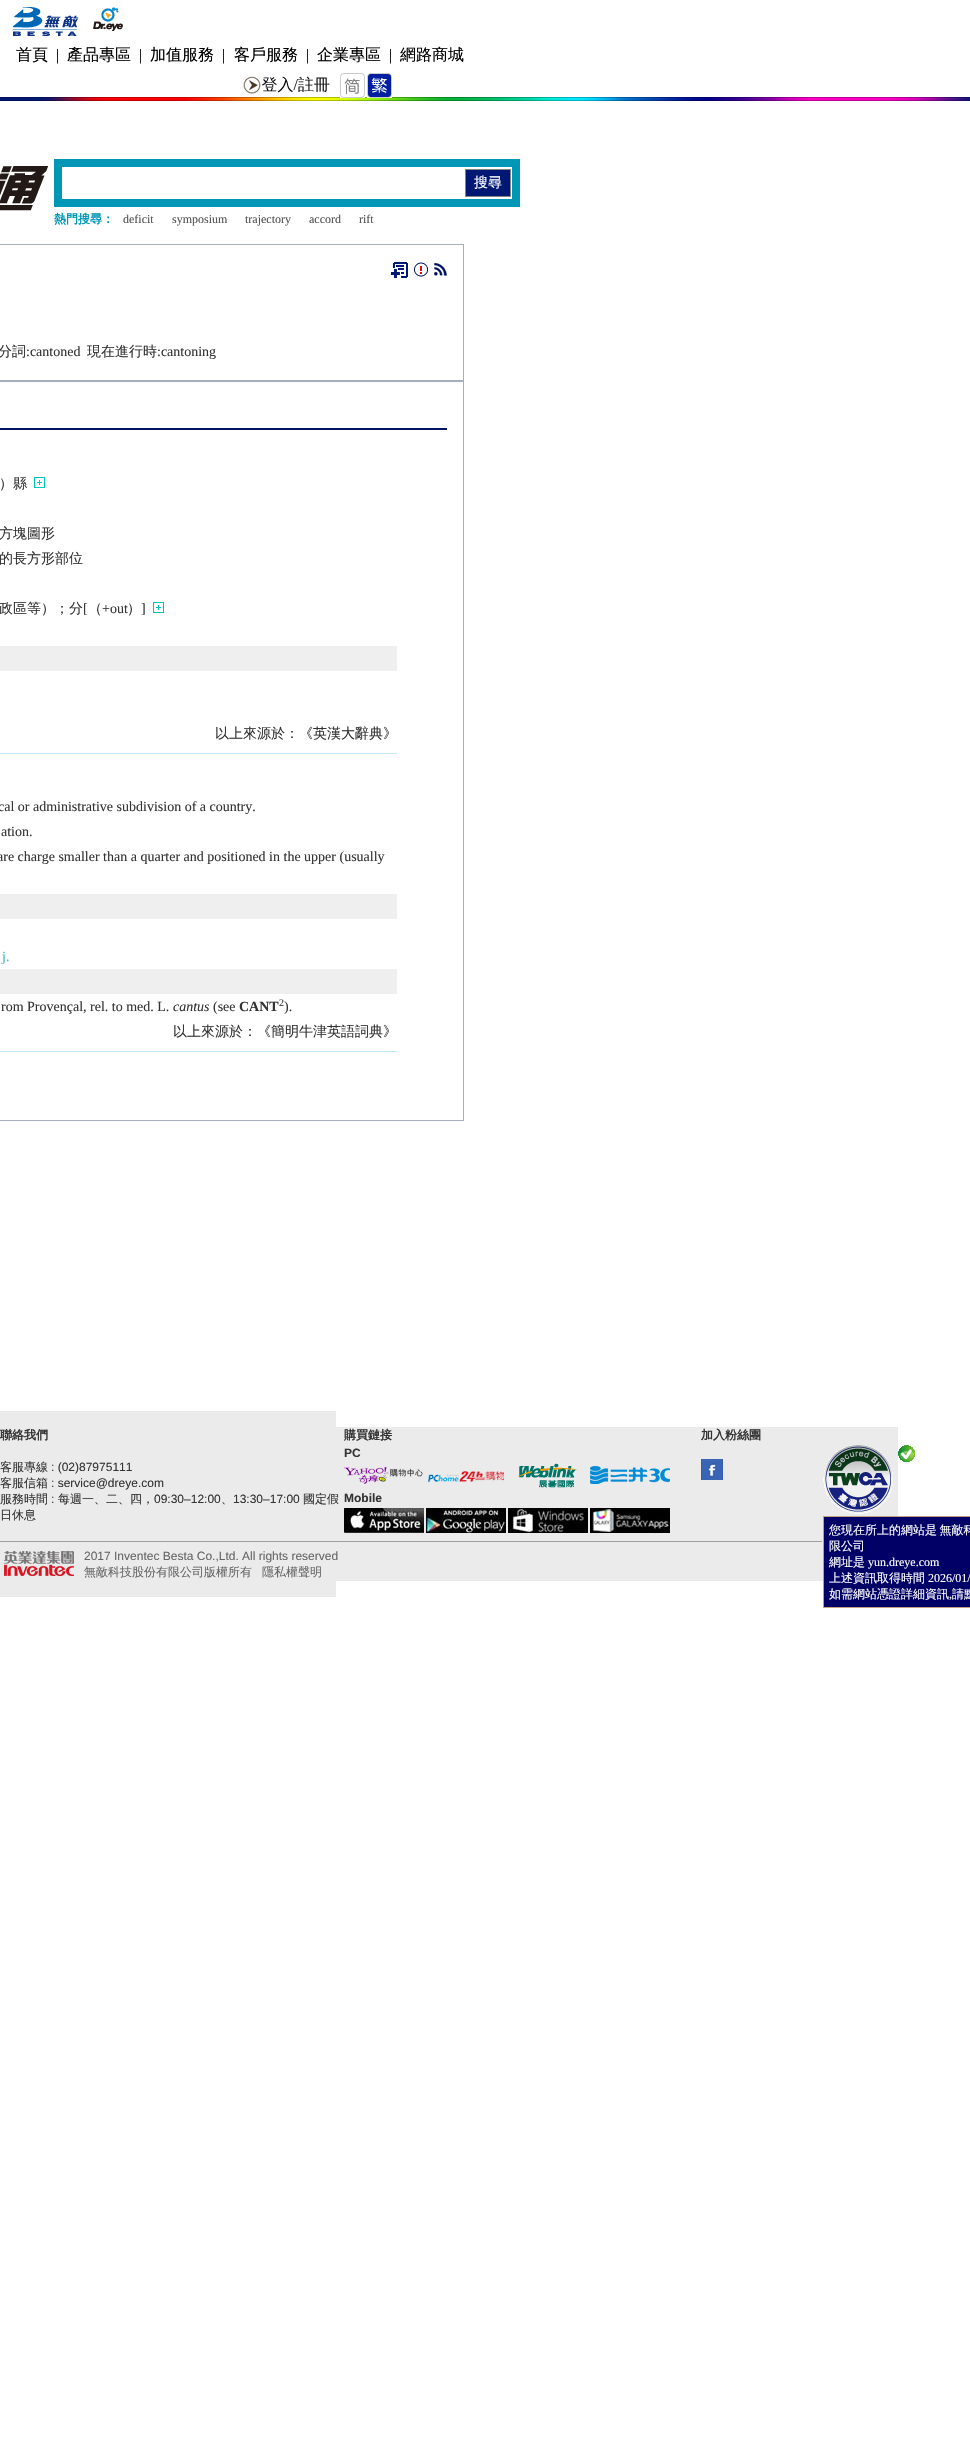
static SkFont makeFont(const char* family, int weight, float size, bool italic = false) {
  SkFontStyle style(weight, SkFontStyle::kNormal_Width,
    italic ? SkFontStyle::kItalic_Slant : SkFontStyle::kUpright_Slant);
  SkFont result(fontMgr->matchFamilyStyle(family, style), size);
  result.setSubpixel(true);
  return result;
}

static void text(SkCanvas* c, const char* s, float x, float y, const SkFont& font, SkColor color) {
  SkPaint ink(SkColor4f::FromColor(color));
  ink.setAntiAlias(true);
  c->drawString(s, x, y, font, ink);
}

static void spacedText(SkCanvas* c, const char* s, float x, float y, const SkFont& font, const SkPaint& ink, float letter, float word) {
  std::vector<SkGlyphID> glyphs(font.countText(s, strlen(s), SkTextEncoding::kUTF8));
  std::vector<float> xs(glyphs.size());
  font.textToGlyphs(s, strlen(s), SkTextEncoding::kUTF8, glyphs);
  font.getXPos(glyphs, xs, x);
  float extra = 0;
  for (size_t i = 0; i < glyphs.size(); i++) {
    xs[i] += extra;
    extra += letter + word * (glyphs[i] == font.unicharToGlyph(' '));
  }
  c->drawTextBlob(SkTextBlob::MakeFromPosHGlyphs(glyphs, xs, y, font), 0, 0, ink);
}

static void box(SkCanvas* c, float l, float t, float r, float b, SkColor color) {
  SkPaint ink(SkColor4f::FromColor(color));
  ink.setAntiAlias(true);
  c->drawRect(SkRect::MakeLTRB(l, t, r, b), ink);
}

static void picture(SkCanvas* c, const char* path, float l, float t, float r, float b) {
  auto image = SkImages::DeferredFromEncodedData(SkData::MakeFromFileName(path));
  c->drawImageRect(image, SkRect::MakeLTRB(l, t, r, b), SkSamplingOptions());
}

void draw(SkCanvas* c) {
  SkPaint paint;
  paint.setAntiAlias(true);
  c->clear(0xffffffff);
  picture(c, "img_01.png", 12, 7, 79, 36);
  picture(c, "img_02.png", 90, 1, 123, 32);
  SkFont face1 = makeFont("WenQuanYi Zen Hei", 500, 16);
  text(c, "首頁", 16, 60, face1, 0xff000000);
  SkFont face2 = makeFont("Liberation Serif", 400, 16);
  text(c, "|", 56, 60, face2, 0xff000000);
  text(c, "產品專區", 67, 60, face1, 0xff000000);
  text(c, "|", 139, 60, face2, 0xff000000);
  text(c, "加值服務", 150, 60, face1, 0xff000000);
  text(c, "|", 222, 60, face2, 0xff000000);
  text(c, "客戶服務", 234, 60, face1, 0xff000000);
  text(c, "|", 306, 60, face2, 0xff000000);
  text(c, "企業專區", 317, 60, face1, 0xff000000);
  text(c, "|", 389, 60, face2, 0xff000000);
  text(c, "網路商城", 400, 60, face1, 0xff000000);
  picture(c, "img_04.png", 0, 97, 970, 101);
  picture(c, "img_03.png", 243, 73, 392, 98);
  picture(c, "img_05.png", 0, 166, 48, 211);
  paint.setStyle(SkPaint::kStroke_Style);
  paint.setStrokeWidth(8);
  paint.setColor(0xff0097b6);
  c->drawRect(SkRect::MakeLTRB(58, 163, 516, 203), paint);
  paint.setStyle(SkPaint::kFill_Style);
  paint.setColor(0xff001874);
  c->drawRect(SkRect::MakeLTRB(465.5f, 169.5f, 510.5f, 196.5f), paint);
  paint.setStyle(SkPaint::kStroke_Style);
  paint.setStrokeWidth(1);
  paint.setColor(0xff858585);
  c->drawRect(SkRect::MakeLTRB(465.5f, 169.5f, 510.5f, 196.5f), paint);
  SkFont face3 = makeFont("WenQuanYi Zen Hei", 500, 14);
  text(c, "搜尋", 474, 187, face3, 0xffffffff);
  SkFont face4 = makeFont("WenQuanYi Zen Hei", 700, 12);
  text(c, "熱門搜尋：", 54, 223, face4, 0xff0097b6);
  SkFont face5 = makeFont("Liberation Serif", 400, 12);
  text(c, "deficit", 123, 223, face5, 0xff515151);
  text(c, "symposium", 172, 223, face5, 0xff515151);
  text(c, "trajectory", 245, 223, face5, 0xff515151);
  text(c, "accord", 309, 223, face5, 0xff515151);
  text(c, "rift", 359, 223, face5, 0xff515151);
  paint.setColor(0xffa8adbf);
  c->drawRect(SkRect::MakeLTRB(-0.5f, 244.5f, 463.5f, 380.5f), paint);
  picture(c, "img_06.png", 391, 262, 408, 278);
  picture(c, "img_07.png", 414, 262, 428, 277);
  picture(c, "img_08.png", 434, 263, 447, 276);
  text(c, "分詞", -2, 356, face3, 0xff333333);
  SkFont face6 = makeFont("Liberation Serif", 400, 14);
  text(c, ":cantoned", 26, 356, face6, 0xff333333);
  text(c, "現在進行時", 87, 356, face3, 0xff333333);
  text(c, ":cantoning", 157, 356, face6, 0xff333333);
  c->drawRect(SkRect::MakeLTRB(-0.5f, 381.5f, 463.5f, 1120.5f), paint);
  box(c, 0, 428, 447, 430, 0xff001363);
  text(c, "）縣", -1, 488, face3, 0xff333333);
  picture(c, "img_09.png", 34, 477, 45, 488);
  text(c, "方塊圖形", -1, 538, face3, 0xff333333);
  text(c, "的長方形部位", -1, 563, face3, 0xff333333);
  text(c, "政區等）；分", -1, 613, face3, 0xff333333);
  text(c, "[", 83, 613, face6, 0xff333333);
  text(c, "（", 88, 613, face3, 0xff333333);
  text(c, "+out", 102, 613, face6, 0xff333333);
  text(c, "）", 127, 613, face3, 0xff333333);
  text(c, "]", 141, 613, face6, 0xff333333);
  picture(c, "img_09.png", 153, 602, 164, 613);
  box(c, 0, 646, 397, 671, 0xffefefef);
  text(c, "以上來源於：《英漢大辭典》", 215, 738, face3, 0xff333333);
  box(c, 0, 753, 397, 754, 0xffc4e8f8);
  text(c, "cal or administrative subdivision of a country.", -2, 811, face6, 0xff333333);
  text(c, "ation.", 1, 836, face6, 0xff333333);
  text(c, "are charge smaller than a quarter and positioned in the upper (usually", -3, 861, face6, 0xff333333);
  box(c, 0, 894, 397, 919, 0xffefefef);
  text(c, "j.", 2, 961, face6, 0xff43b4c6);
  box(c, 0, 969, 397, 994, 0xffefefef);
  text(c, "rom Provençal, rel. to med. L.", 1, 1011, face6, 0xff333333);
  SkFont face7 = makeFont("Liberation Serif", 400, 14, true);
  text(c, "cantus", 173, 1011, face7, 0xff333333);
  text(c, "(see", 213, 1011, face6, 0xff333333);
  SkFont face8 = makeFont("Liberation Serif", 700, 14);
  text(c, "CANT", 239, 1011, face8, 0xff333333);
  SkFont face9 = makeFont("Liberation Serif", 400, 10);
  text(c, "2", 279, 1006, face9, 0xff333333);
  text(c, ").", 284, 1011, face6, 0xff333333);
  text(c, "以上來源於：《簡明牛津英語詞典》", 173, 1036, face3, 0xff333333);
  box(c, 0, 1051, 397, 1052, 0xffc4e8f8);
  box(c, 0, 1411, 336, 1597, 0xffebebeb);
  box(c, 336, 1427, 898, 1581, 0xffebebeb);
  text(c, "聯絡我們", 0, 1439, face4, 0xff333333);
  SkFont face10 = makeFont("WenQuanYi Zen Hei", 500, 12);
  text(c, "客服專線", 0, 1471, face10, 0xff333333);
  SkFont face11 = makeFont("Liberation Sans", 400, 12);
  text(c, ": (02)87975111", 51, 1471, face11, 0xff333333);
  text(c, "客服信箱", 0, 1487, face10, 0xff333333);
  text(c, ": service@dreye.com", 51, 1487, face11, 0xff333333);
  text(c, "服務時間", 0, 1503, face10, 0xff333333);
  text(c, ":", 51, 1503, face11, 0xff333333);
  text(c, "每週一、二、四，", 58, 1503, face10, 0xff333333);
  text(c, "09:30–12:00", 154, 1503, face11, 0xff333333);
  text(c, "13:30–17:00", 233, 1503, face11, 0xff333333);
  text(c, "國定假", 303, 1503, face10, 0xff333333);
  text(c, "、", 221, 1503, face10, 0xff333333);
  text(c, "日休息", 0, 1519, face10, 0xff333333);
  text(c, "購買鏈接", 344, 1439, face4, 0xff333333);
  SkFont face12 = makeFont("Liberation Sans", 700, 12);
  text(c, "PC", 344, 1457, face12, 0xff333333);
  picture(c, "img_10.png", 344, 1467, 423, 1484);
  picture(c, "img_11.png", 428, 1471, 504, 1482);
  picture(c, "img_12.png", 518, 1463, 578, 1488);
  picture(c, "img_13.png", 590, 1466, 670, 1484);
  text(c, "Mobile", 344, 1502, face12, 0xff333333);
  picture(c, "img_14.png", 344, 1508, 424, 1533);
  picture(c, "img_15.png", 426, 1508, 506, 1533);
  picture(c, "img_16.png", 508, 1508, 588, 1533);
  picture(c, "img_17.png", 590, 1508, 670, 1533);
  text(c, "加入粉絲團", 701, 1439, face4, 0xff333333);
  picture(c, "img_18.png", 701, 1459, 723, 1480);
  picture(c, "img_19.png", 823, 1445, 893, 1514);
  picture(c, "img_20.png", 898, 1445, 915, 1462);
  paint.setStyle(SkPaint::kFill_Style);
  paint.setColor(0xff000066);
  c->drawRect(SkRect::MakeLTRB(823.5f, 1516.5f, 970.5f, 1607.5f), paint);
  paint.setStyle(SkPaint::kStroke_Style);
  paint.setColor(0xffc0a080);
  c->drawRect(SkRect::MakeLTRB(823.5f, 1516.5f, 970.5f, 1607.5f), paint);
  paint.setStyle(SkPaint::kFill_Style);
  paint.setColor(0xffffffff);
  spacedText(c, "您現在所上的網站是 無敵科", 829, 1534, face10, paint, 0, -1);
  text(c, "限公司", 829, 1550, face10, 0xffffffff);
  text(c, "網址是", 829, 1566, face10, 0xffffffff);
  text(c, "yun.dreye.com", 868, 1566, face5, 0xffffffff);
  text(c, "上述資訊取得時間", 829, 1582, face10, 0xffffffff);
  text(c, "2026/01/", 928, 1582, face5, 0xffffffff);
  text(c, "如需網站憑證詳細資訊", 829, 1598, face10, 0xffffffff);
  text(c, ",", 949, 1598, face5, 0xffffffff);
  spacedText(c, "請點", 952, 1598, face10, paint, 0, -1);
  box(c, 0, 1541, 823, 1542, 0xff9f9f9f);
  box(c, 822, 1541, 823, 1542, 0xffeeeeee);
  picture(c, "img_21.png", 4, 1551, 74, 1576);
  text(c, "2017 Inventec Besta Co.,Ltd. All rights reserved", 84, 1560, face11, 0xff666666);
  text(c, "無敵科技股份有限公司版權所有", 84, 1576, face10, 0xff666666);
  text(c, "隱私權聲明", 262, 1576, face10, 0xff666666);
}
